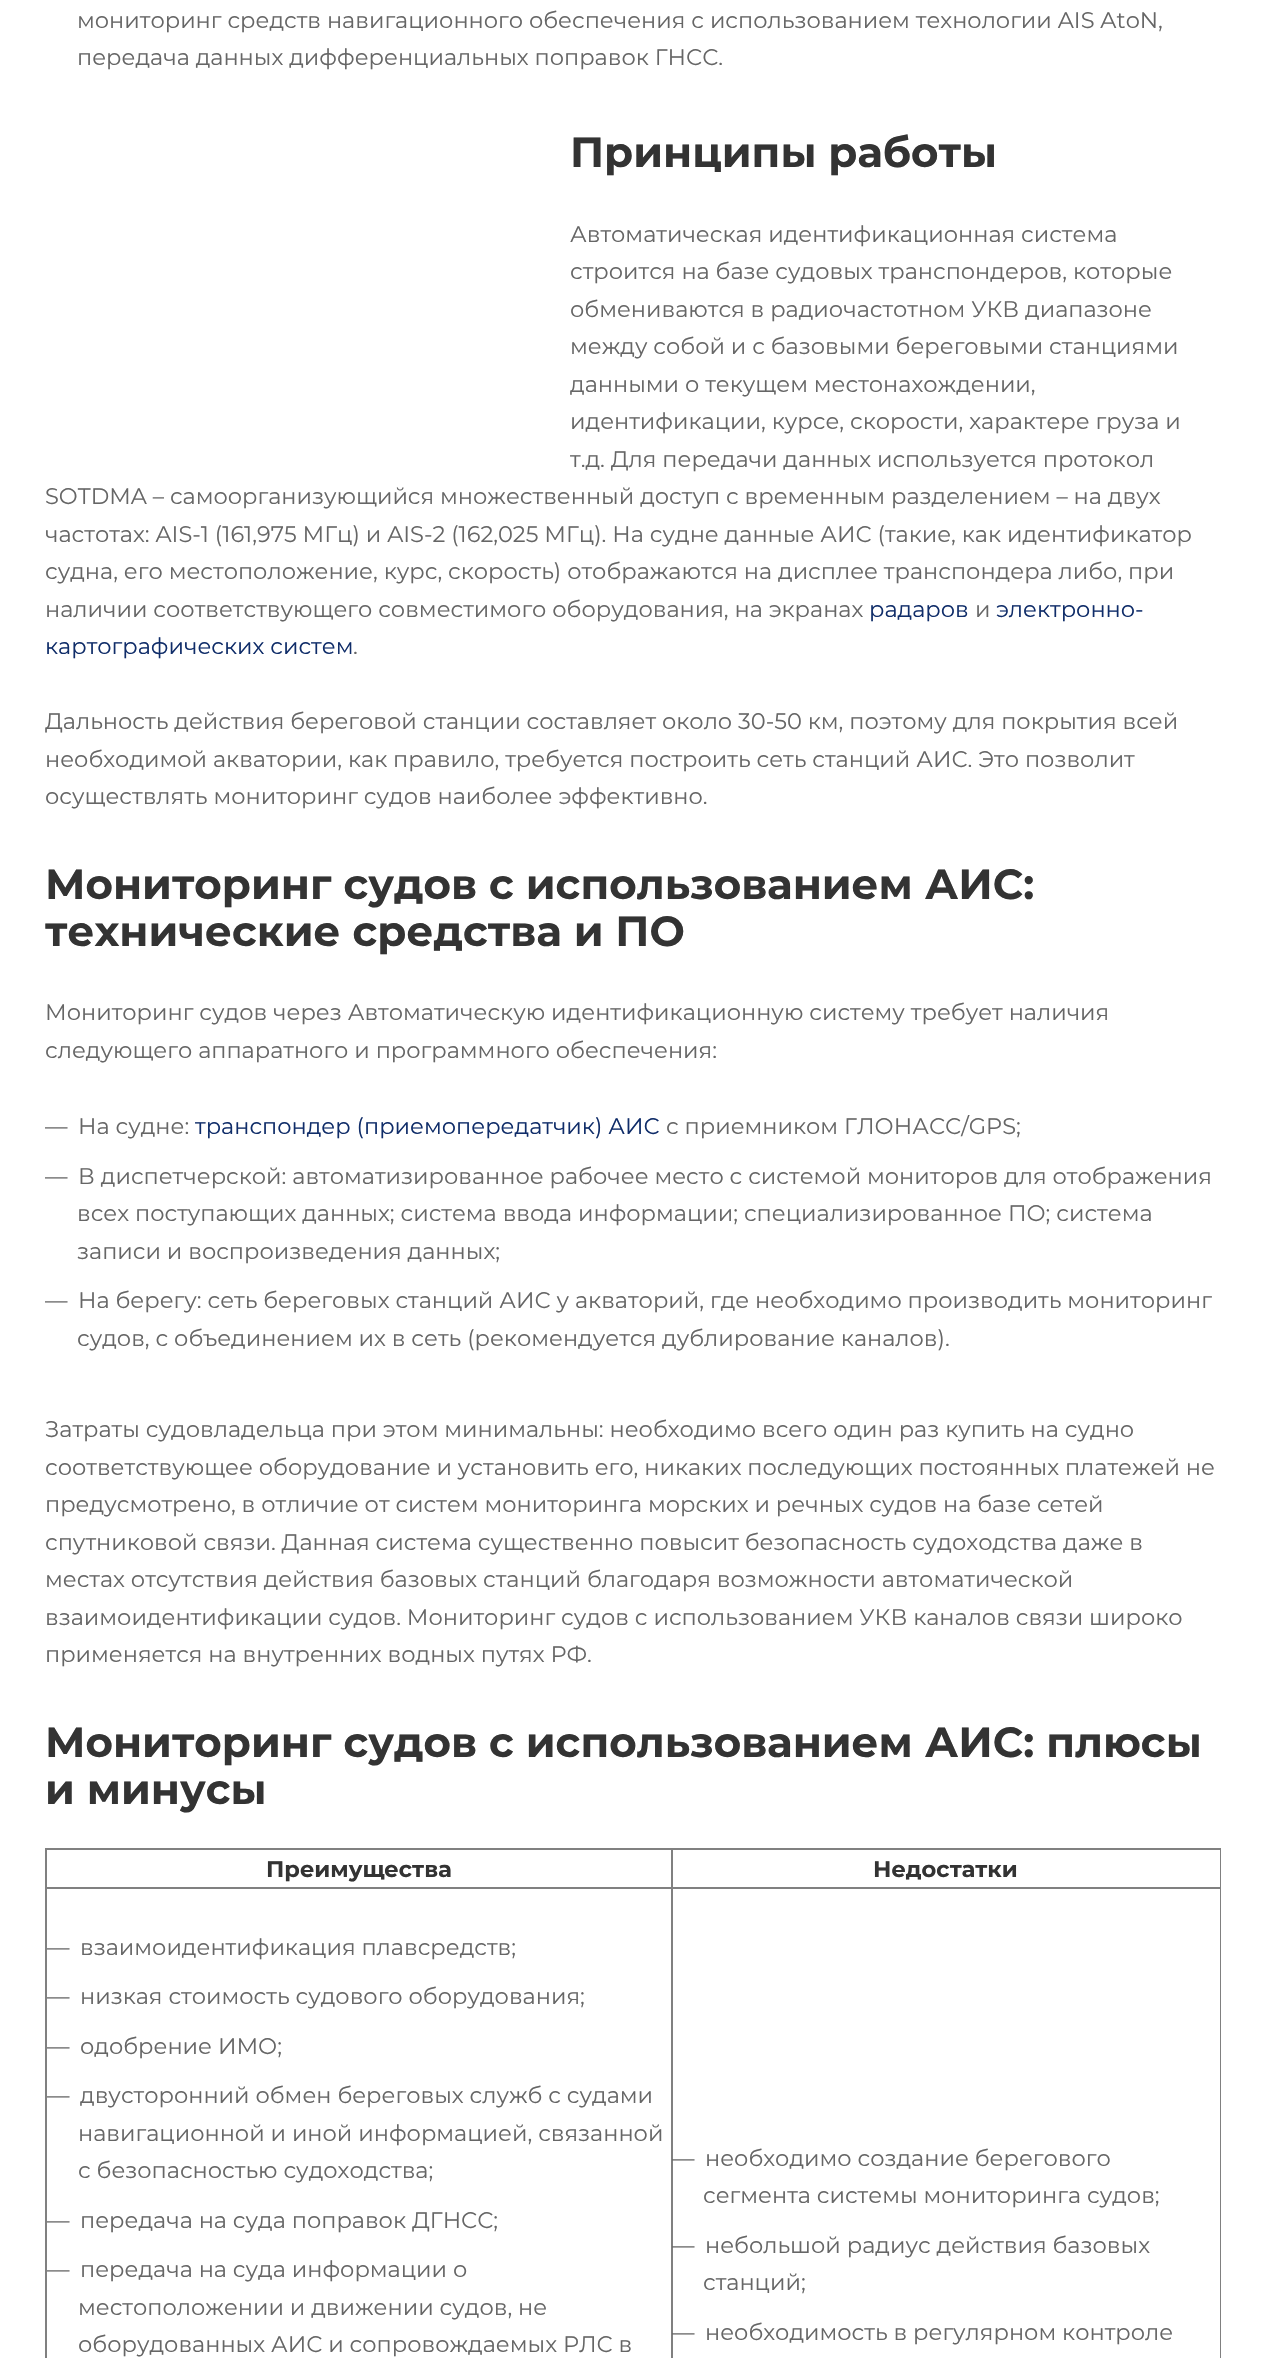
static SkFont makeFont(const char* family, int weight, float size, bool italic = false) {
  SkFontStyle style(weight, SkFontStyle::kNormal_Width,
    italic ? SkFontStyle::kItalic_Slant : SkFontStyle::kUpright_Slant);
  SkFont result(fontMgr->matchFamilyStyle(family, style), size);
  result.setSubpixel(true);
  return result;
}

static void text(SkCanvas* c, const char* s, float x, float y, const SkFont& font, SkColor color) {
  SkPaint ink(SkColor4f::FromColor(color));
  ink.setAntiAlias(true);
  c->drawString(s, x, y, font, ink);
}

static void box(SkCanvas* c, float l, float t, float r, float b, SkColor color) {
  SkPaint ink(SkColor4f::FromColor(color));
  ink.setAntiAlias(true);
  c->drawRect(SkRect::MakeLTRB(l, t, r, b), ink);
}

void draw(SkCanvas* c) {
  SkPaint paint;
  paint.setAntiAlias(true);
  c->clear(0xffffffff);
  SkFont face1 = makeFont("Montserrat", 400, 22.5f);
  text(c, "мониторинг средств навигационного обеспечения с использованием технологии AIS AtoN,", 77, 28, face1, 0xff666666);
  text(c, "передача данных дифференциальных поправок ГНСС.", 77, 65, face1, 0xff666666);
  SkFont face2 = makeFont("Montserrat", 700, 42);
  text(c, "Принципы работы", 570, 167, face2, 0xff333333);
  text(c, "Автоматическая идентификационная система", 570, 242, face1, 0xff666666);
  text(c, "строится на базе судовых транспондеров, которые", 570, 279, face1, 0xff666666);
  text(c, "обмениваются в радиочастотном УКВ диапазоне", 570, 317, face1, 0xff666666);
  text(c, "между собой и с базовыми береговыми станциями", 570, 354, face1, 0xff666666);
  text(c, "данными о текущем местонахождении,", 570, 392, face1, 0xff666666);
  text(c, "идентификации, курсе, скорости, характере груза и", 570, 429, face1, 0xff666666);
  text(c, "т.д. Для передачи данных используется протокол", 570, 467, face1, 0xff666666);
  text(c, "SOTDMA – самоорганизующийся множественный доступ с временным разделением – на двух", 45, 504, face1, 0xff666666);
  text(c, "частотах: AIS-1 (161,975 МГц) и AIS-2 (162,025 МГц). На судне данные АИС (такие, как идентификатор", 45, 542, face1, 0xff666666);
  text(c, "судна, его местоположение, курс, скорость) отображаются на дисплее транспондера либо, при", 45, 579, face1, 0xff666666);
  text(c, "наличии соответствующего совместимого оборудования, на экранах", 45, 617, face1, 0xff666666);
  text(c, "радаров", 869, 617, face1, 0xff102d69);
  text(c, "и", 975, 617, face1, 0xff666666);
  text(c, "электронно-", 996, 617, face1, 0xff102d69);
  text(c, "картографических систем", 45, 654, face1, 0xff102d69);
  text(c, ".", 353, 654, face1, 0xff666666);
  text(c, "Дальность действия береговой станции составляет около 30-50 км, поэтому для покрытия всей", 45, 729, face1, 0xff666666);
  text(c, "необходимой акватории, как правило, требуется построить сеть станций АИС. Это позволит", 45, 767, face1, 0xff666666);
  text(c, "осуществлять мониторинг судов наиболее эффективно.", 45, 804, face1, 0xff666666);
  text(c, "Мониторинг судов с использованием АИС:", 45, 899, face2, 0xff333333);
  text(c, "технические средства и ПО", 45, 946, face2, 0xff333333);
  text(c, "Мониторинг судов через Автоматическую идентификационную систему требует наличия", 45, 1020, face1, 0xff666666);
  text(c, "следующего аппаратного и программного обеспечения:", 45, 1058, face1, 0xff666666);
  text(c, "—", 45, 1134, face1, 0xff666666);
  text(c, "На судне:", 78, 1134, face1, 0xff666666);
  text(c, "транспондер (приемопередатчик) АИС", 195, 1134, face1, 0xff102d69);
  text(c, "с приемником ГЛОНАСС/GPS;", 666, 1134, face1, 0xff666666);
  text(c, "—", 45, 1184, face1, 0xff666666);
  text(c, "В диспетчерской: автоматизированное рабочее место с системой мониторов для отображения", 78, 1184, face1, 0xff666666);
  text(c, "всех поступающих данных; система ввода информации; специализированное ПО; система", 77, 1221, face1, 0xff666666);
  text(c, "записи и воспроизведения данных;", 77, 1259, face1, 0xff666666);
  text(c, "—", 45, 1308, face1, 0xff666666);
  text(c, "На берегу: сеть береговых станций АИС у акваторий, где необходимо производить мониторинг", 78, 1308, face1, 0xff666666);
  text(c, "судов, с объединением их в сеть (рекомендуется дублирование каналов).", 77, 1346, face1, 0xff666666);
  text(c, "Затраты судовладельца при этом минимальны: необходимо всего один раз купить на судно", 45, 1437, face1, 0xff666666);
  text(c, "соответствующее оборудование и установить его, никаких последующих постоянных платежей не", 45, 1475, face1, 0xff666666);
  text(c, "предусмотрено, в отличие от систем мониторинга морских и речных судов на базе сетей", 45, 1512, face1, 0xff666666);
  text(c, "спутниковой связи. Данная система существенно повысит безопасность судоходства даже в", 45, 1550, face1, 0xff666666);
  text(c, "местах отсутствия действия базовых станций благодаря возможности автоматической", 45, 1587, face1, 0xff666666);
  text(c, "взаимоидентификации судов. Мониторинг судов с использованием УКВ каналов связи широко", 45, 1625, face1, 0xff666666);
  text(c, "применяется на внутренних водных путях РФ.", 45, 1662, face1, 0xff666666);
  text(c, "Мониторинг судов с использованием АИС: плюсы", 45, 1757, face2, 0xff333333);
  text(c, "и минусы", 45, 1804, face2, 0xff333333);
  box(c, 45, 1848, 1221, 1850, 0xff808080);
  box(c, 1220, 1848, 1221, 2358, 0xff808080);
  box(c, 45, 1848, 47, 2358, 0xff808080);
  SkFont face3 = makeFont("Montserrat", 700, 22.5f);
  text(c, "Преимущества", 266, 1877, face3, 0xff333333);
  box(c, 671, 1887, 1221, 1889, 0xff808080);
  box(c, 671, 1887, 673, 2358, 0xff808080);
  box(c, 45, 1887, 672, 1889, 0xff808080);
  box(c, 671, 1848, 673, 1889, 0xff808080);
  text(c, "Недостатки", 873, 1877, face3, 0xff333333);
  text(c, "—", 47, 1955, face1, 0xff666666);
  text(c, "взаимоидентификация плавсредств;", 80, 1955, face1, 0xff666666);
  text(c, "—", 47, 2004, face1, 0xff666666);
  text(c, "низкая стоимость судового оборудования;", 80, 2004, face1, 0xff666666);
  text(c, "—", 47, 2054, face1, 0xff666666);
  text(c, "одобрение ИМО;", 80, 2054, face1, 0xff666666);
  text(c, "—", 47, 2103, face1, 0xff666666);
  text(c, "двусторонний обмен береговых служб с судами", 80, 2103, face1, 0xff666666);
  text(c, "навигационной и иной информацией, связанной", 78, 2141, face1, 0xff666666);
  text(c, "с безопасностью судоходства;", 78, 2178, face1, 0xff666666);
  text(c, "—", 47, 2228, face1, 0xff666666);
  text(c, "передача на суда поправок ДГНСС;", 80, 2228, face1, 0xff666666);
  text(c, "—", 47, 2277, face1, 0xff666666);
  text(c, "передача на суда информации о", 80, 2277, face1, 0xff666666);
  text(c, "местоположении и движении судов, не", 78, 2315, face1, 0xff666666);
  text(c, "оборудованных АИС и сопровождаемых РЛС в", 78, 2352, face1, 0xff666666);
  text(c, "—", 672, 2166, face1, 0xff666666);
  text(c, "необходимо создание берегового", 705, 2166, face1, 0xff666666);
  text(c, "сегмента системы мониторинга судов;", 703, 2203, face1, 0xff666666);
  text(c, "—", 672, 2253, face1, 0xff666666);
  text(c, "небольшой радиус действия базовых", 705, 2253, face1, 0xff666666);
  text(c, "станций;", 703, 2290, face1, 0xff666666);
  text(c, "—", 672, 2340, face1, 0xff666666);
  text(c, "необходимость в регулярном контроле", 705, 2340, face1, 0xff666666);
}
